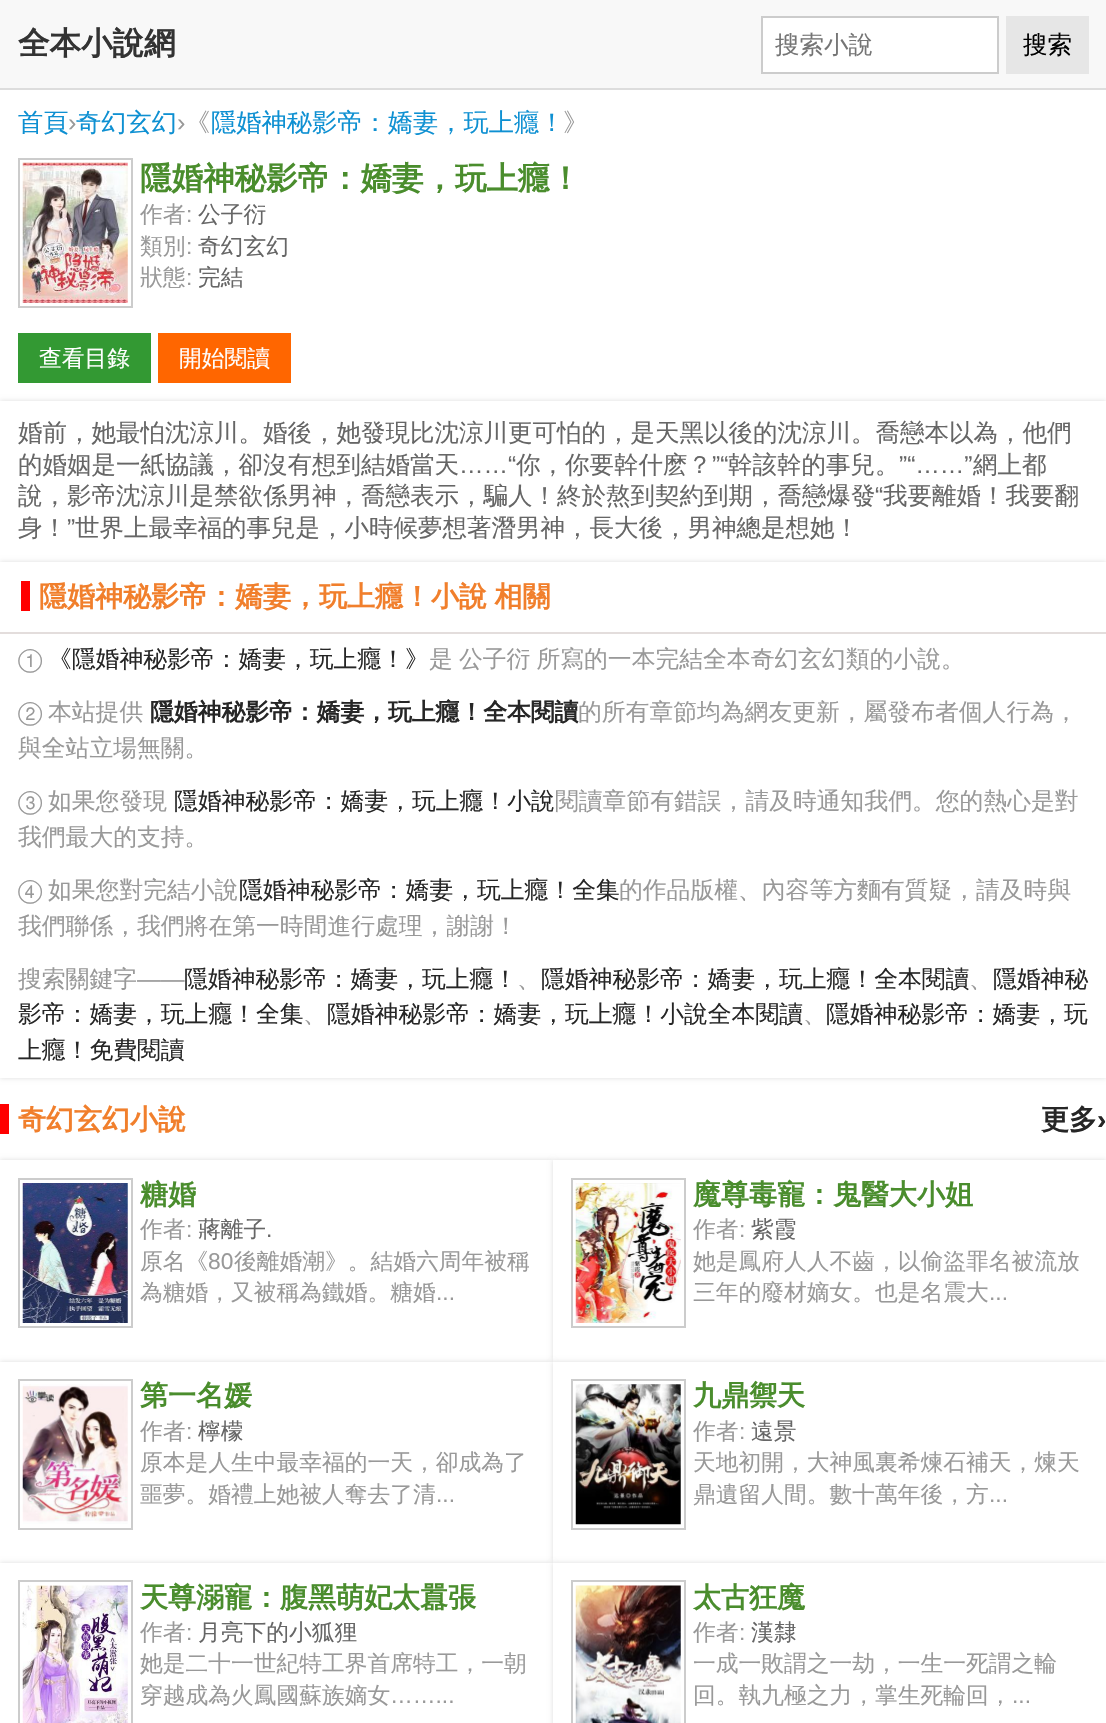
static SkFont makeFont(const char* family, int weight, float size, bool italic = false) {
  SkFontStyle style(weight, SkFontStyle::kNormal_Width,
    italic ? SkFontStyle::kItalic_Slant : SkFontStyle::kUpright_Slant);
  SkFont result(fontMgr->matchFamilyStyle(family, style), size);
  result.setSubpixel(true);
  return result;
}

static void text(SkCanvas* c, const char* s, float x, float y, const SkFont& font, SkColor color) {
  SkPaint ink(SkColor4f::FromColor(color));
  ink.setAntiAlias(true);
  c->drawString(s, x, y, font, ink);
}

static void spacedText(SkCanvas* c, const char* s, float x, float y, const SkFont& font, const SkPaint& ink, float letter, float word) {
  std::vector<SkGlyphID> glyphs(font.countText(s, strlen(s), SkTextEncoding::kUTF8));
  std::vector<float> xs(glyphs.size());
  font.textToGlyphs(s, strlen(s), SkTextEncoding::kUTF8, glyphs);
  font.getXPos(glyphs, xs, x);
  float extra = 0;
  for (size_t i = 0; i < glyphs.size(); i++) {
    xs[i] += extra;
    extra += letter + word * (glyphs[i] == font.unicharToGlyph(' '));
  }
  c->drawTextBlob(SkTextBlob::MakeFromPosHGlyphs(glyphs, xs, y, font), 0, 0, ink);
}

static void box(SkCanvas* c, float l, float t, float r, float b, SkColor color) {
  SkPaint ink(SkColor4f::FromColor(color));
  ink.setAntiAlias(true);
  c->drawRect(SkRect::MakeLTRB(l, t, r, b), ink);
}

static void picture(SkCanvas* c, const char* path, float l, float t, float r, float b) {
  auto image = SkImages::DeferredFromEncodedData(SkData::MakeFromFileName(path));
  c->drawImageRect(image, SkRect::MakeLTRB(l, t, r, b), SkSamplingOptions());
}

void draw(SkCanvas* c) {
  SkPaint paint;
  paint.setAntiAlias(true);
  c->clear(0xffffffff);
  box(c, 0, 0, 1106, 88, 0xfff8f8f8);
  box(c, 0, 88, 1106, 90, 0xffdddddd);
  SkFont face1 = makeFont("WenQuanYi Zen Hei", 700, 31.5f);
  text(c, "全本小說網", 18, 54, face1, 0xff333333);
  paint.setColor(0xffffffff);
  c->drawRect(SkRect::MakeLTRB(762, 17, 998, 73), paint);
  paint.setStyle(SkPaint::kStroke_Style);
  paint.setStrokeWidth(2);
  paint.setColor(0xffcccccc);
  c->drawRect(SkRect::MakeLTRB(762, 17, 998, 73), paint);
  SkFont face2 = makeFont("WenQuanYi Zen Hei", 500, 24.5f);
  text(c, "搜索小說", 775, 53, face2, 0xff757575);
  box(c, 1006, 16, 1089, 74, 0xffe6e6e6);
  text(c, "搜索", 1023, 53, face2, 0xff000000);
  SkFont face3 = makeFont("WenQuanYi Zen Hei", 500, 25.25f);
  text(c, "首頁", 18, 131, face3, 0xff0e90d2);
  SkFont face4 = makeFont("Liberation Sans", 400, 25.25f);
  text(c, "›", 68, 131, face4, 0xff999999);
  text(c, "奇幻玄幻", 76, 131, face3, 0xff0e90d2);
  text(c, "›", 177, 131, face4, 0xff999999);
  text(c, "《", 185, 131, face3, 0xff999999);
  text(c, "隱婚神秘影帝：嬌妻，玩上癮！", 211, 131, face3, 0xff0e90d2);
  text(c, "》", 563, 131, face3, 0xff999999);
  c->drawRect(SkRect::MakeLTRB(19, 159, 132, 307), paint);
  picture(c, "img_01.png", 22, 162, 128, 303);
  text(c, "隱婚神秘影帝：嬌妻，玩上癮！", 140, 189, face1, 0xff4a8d2d);
  SkFont face5 = makeFont("WenQuanYi Zen Hei", 500, 22.75f);
  text(c, "作者", 140, 222, face5, 0xff999999);
  SkFont face6 = makeFont("Liberation Sans", 400, 22.75f);
  text(c, ":", 186, 222, face6, 0xff999999);
  text(c, "公子衍", 198, 222, face5, 0xff666666);
  text(c, "類別", 140, 254, face5, 0xff999999);
  text(c, ":", 186, 254, face6, 0xff999999);
  text(c, "奇幻玄幻", 198, 254, face5, 0xff666666);
  text(c, "狀態", 140, 285, face5, 0xff999999);
  text(c, ":", 186, 285, face6, 0xff999999);
  text(c, "完結", 198, 285, face5, 0xff666666);
  box(c, 18, 333, 151, 383, 0xff339933);
  text(c, "查看目錄", 39, 366, face5, 0xffffffff);
  box(c, 158, 333, 291, 383, 0xffff6600);
  text(c, "開始閱讀", 179, 366, face5, 0xffffffff);
  paint.setStyle(SkPaint::kFill_Style);
  paint.setColor(0xffdddddd);
  paint.setMaskFilter(SkMaskFilter::MakeBlur(kNormal_SkBlurStyle, 2.5f));
  c->drawRect(SkRect::MakeLTRB(0, 401, 1106, 562), paint);
  paint.setMaskFilter(nullptr);
  box(c, 0, 401, 1106, 562, 0xffffffff);
  text(c, "婚前，她最怕沈涼川。婚後，她發現比沈涼川更可怕的，是天黑以後的沈涼川。喬戀本以為，他們", 18, 441, face2, 0xff666666);
  text(c, "的婚姻是一紙協議，卻沒有想到結婚當天", 18, 473, face2, 0xff666666);
  SkFont face7 = makeFont("Liberation Sans", 400, 24.5f);
  text(c, "……“", 459, 473, face7, 0xff666666);
  text(c, "你，你要幹什麽？", 516, 473, face2, 0xff666666);
  text(c, "”“", 712, 473, face7, 0xff666666);
  text(c, "幹該幹的事兒。", 728, 473, face2, 0xff666666);
  text(c, "”“……”", 899, 473, face7, 0xff666666);
  text(c, "網上都", 973, 473, face2, 0xff666666);
  text(c, "說，影帝沈涼川是禁欲係男神，喬戀表示，騙人！終於熬到契約到期，喬戀爆發", 18, 504, face2, 0xff666666);
  text(c, "“", 875, 504, face7, 0xff666666);
  text(c, "我要離婚！我要翻", 883, 504, face2, 0xff666666);
  text(c, "身！", 18, 536, face2, 0xff666666);
  text(c, "”", 67, 536, face7, 0xff666666);
  text(c, "世界上最幸福的事兒是，小時候夢想著潛男神，長大後，男神總是想她！", 75, 536, face2, 0xff666666);
  paint.setMaskFilter(SkMaskFilter::MakeBlur(kNormal_SkBlurStyle, 2.5f));
  c->drawRect(SkRect::MakeLTRB(0, 562, 1106, 1078), paint);
  paint.setMaskFilter(nullptr);
  box(c, 0, 562, 1106, 1078, 0xffffffff);
  box(c, 0, 632, 1106, 634, 0xffe3dddc);
  box(c, 21, 581, 30, 611, 0xffff0000);
  SkFont face8 = makeFont("WenQuanYi Zen Hei", 700, 28);
  paint.setColor(0xfff17f2c);
  spacedText(c, "隱婚神秘影帝：嬌妻，玩上癮！小說 相關", 39, 606, face8, paint, 0, -1);
  SkFont face9 = makeFont("FreeSans", 400, 23.8f);
  text(c, "①", 18, 667, face9, 0xff999999);
  SkFont face10 = makeFont("WenQuanYi Zen Hei", 500, 23.8f);
  text(c, "《隱婚神秘影帝：嬌妻，玩上癮！》", 48, 667, face10, 0xff262626);
  paint.setColor(0xff999999);
  spacedText(c, "是 公子衍 所寫的一本完結全本奇幻玄幻類的小說。", 429, 667, face10, paint, 0, -1);
  text(c, "②", 18, 720, face9, 0xff999999);
  text(c, "本站提供", 48, 720, face10, 0xff999999);
  SkFont face11 = makeFont("WenQuanYi Zen Hei", 700, 23.8f);
  text(c, "隱婚神秘影帝：嬌妻，玩上癮！全本閱讀", 150, 720, face11, 0xff262626);
  text(c, "的所有章節均為網友更新，屬發布者個人行為，", 578, 720, face10, 0xff999999);
  text(c, "與全站立場無關。", 18, 756, face10, 0xff999999);
  text(c, "③", 18, 809, face9, 0xff999999);
  text(c, "如果您發現", 48, 809, face10, 0xff999999);
  text(c, "隱婚神秘影帝：嬌妻，玩上癮！小說", 174, 809, face10, 0xff262626);
  text(c, "閱讀章節有錯誤，請及時通知我們。您的熱心是對", 555, 809, face10, 0xff999999);
  text(c, "我們最大的支持。", 18, 845, face10, 0xff999999);
  text(c, "④", 18, 898, face9, 0xff999999);
  text(c, "如果您對完結小說", 48, 898, face10, 0xff999999);
  text(c, "隱婚神秘影帝：嬌妻，玩上癮！全集", 239, 898, face10, 0xff262626);
  text(c, "的作品版權、內容等方麵有質疑，請及時與", 619, 898, face10, 0xff999999);
  text(c, "我們聯係，我們將在第一時間進行處理，謝謝！", 18, 934, face10, 0xff999999);
  text(c, "搜索關鍵字", 18, 987, face10, 0xff999999);
  SkFont face12 = makeFont("Liberation Sans", 400, 23.8f);
  text(c, "——", 137, 987, face12, 0xff999999);
  text(c, "隱婚神秘影帝：嬌妻，玩上癮！", 184, 987, face10, 0xff262626);
  text(c, "隱婚神秘影帝：嬌妻，玩上癮！全本閱讀", 541, 987, face10, 0xff262626);
  text(c, "隱婚神秘", 993, 987, face10, 0xff262626);
  text(c, "、", 517, 987, face10, 0xff999999);
  text(c, "、", 969, 987, face10, 0xff999999);
  text(c, "影帝：嬌妻，玩上癮！全集", 18, 1022, face10, 0xff262626);
  text(c, "、", 303, 1022, face10, 0xff999999);
  text(c, "隱婚神秘影帝：嬌妻，玩上癮！小說全本閱讀", 327, 1022, face10, 0xff262626);
  text(c, "、", 803, 1022, face10, 0xff999999);
  text(c, "隱婚神秘影帝：嬌妻，玩", 826, 1022, face10, 0xff262626);
  text(c, "上癮！免費閱讀", 18, 1058, face10, 0xff262626);
  box(c, 0, 1104, 9, 1134, 0xffff0000);
  text(c, "奇幻玄幻小說", 18, 1129, face8, 0xfff17f2c);
  text(c, "更多", 1041, 1129, face8, 0xff262626);
  SkFont face13 = makeFont("Liberation Sans", 700, 28);
  text(c, "›", 1097, 1129, face13, 0xff262626);
  paint.setColor(0xffdddddd);
  paint.setMaskFilter(SkMaskFilter::MakeBlur(kNormal_SkBlurStyle, 2.5f));
  c->drawRect(SkRect::MakeLTRB(0, 1160, 553, 1362), paint);
  paint.setMaskFilter(nullptr);
  box(c, 0, 1160, 553, 1362, 0xffffffff);
  paint.setStyle(SkPaint::kStroke_Style);
  paint.setColor(0xffcccccc);
  c->drawRect(SkRect::MakeLTRB(19, 1179, 132, 1327), paint);
  picture(c, "img_02.png", 22, 1183, 128, 1323);
  text(c, "糖婚", 140, 1204, face8, 0xff4a8d2d);
  text(c, "作者", 140, 1237, face5, 0xff999999);
  text(c, ":", 186, 1237, face6, 0xff999999);
  text(c, "蔣離子", 198, 1237, face5, 0xff666666);
  text(c, ".", 266, 1237, face6, 0xff666666);
  text(c, "原名《", 140, 1269, face5, 0xff999999);
  text(c, "80", 208, 1269, face6, 0xff999999);
  text(c, "後離婚潮》。結婚六周年被稱", 234, 1269, face5, 0xff999999);
  text(c, "為糖婚，又被稱為鐵婚。糖婚", 140, 1300, face5, 0xff999999);
  text(c, "...", 436, 1300, face6, 0xff999999);
  paint.setStyle(SkPaint::kFill_Style);
  paint.setColor(0xffdddddd);
  paint.setMaskFilter(SkMaskFilter::MakeBlur(kNormal_SkBlurStyle, 2.5f));
  c->drawRect(SkRect::MakeLTRB(553, 1160, 1106, 1362), paint);
  paint.setMaskFilter(nullptr);
  box(c, 553, 1160, 1106, 1362, 0xffffffff);
  paint.setStyle(SkPaint::kStroke_Style);
  paint.setColor(0xffcccccc);
  c->drawRect(SkRect::MakeLTRB(572, 1179, 685, 1327), paint);
  picture(c, "img_03.png", 575, 1183, 681, 1323);
  text(c, "魔尊毒寵：鬼醫大小姐", 693, 1204, face8, 0xff4a8d2d);
  text(c, "作者", 693, 1237, face5, 0xff999999);
  text(c, ":", 739, 1237, face6, 0xff999999);
  text(c, "紫霞", 751, 1237, face5, 0xff666666);
  text(c, "她是鳳府人人不齒，以偷盜罪名被流放", 693, 1269, face5, 0xff999999);
  text(c, "三年的廢材嫡女。也是名震大", 693, 1300, face5, 0xff999999);
  text(c, "...", 989, 1300, face6, 0xff999999);
  paint.setStyle(SkPaint::kFill_Style);
  paint.setColor(0xffdddddd);
  paint.setMaskFilter(SkMaskFilter::MakeBlur(kNormal_SkBlurStyle, 2.5f));
  c->drawRect(SkRect::MakeLTRB(0, 1362, 553, 1563), paint);
  paint.setMaskFilter(nullptr);
  box(c, 0, 1362, 553, 1563, 0xffffffff);
  paint.setStyle(SkPaint::kStroke_Style);
  paint.setColor(0xffcccccc);
  c->drawRect(SkRect::MakeLTRB(19, 1380, 132, 1529), paint);
  picture(c, "img_04.png", 22, 1384, 128, 1524);
  text(c, "第一名媛", 140, 1405, face8, 0xff4a8d2d);
  text(c, "作者", 140, 1439, face5, 0xff999999);
  text(c, ":", 186, 1439, face6, 0xff999999);
  text(c, "檸檬", 198, 1439, face5, 0xff666666);
  text(c, "原本是人生中最幸福的一天，卻成為了", 140, 1470, face5, 0xff999999);
  text(c, "噩夢。婚禮上她被人奪去了清", 140, 1502, face5, 0xff999999);
  text(c, "...", 436, 1502, face6, 0xff999999);
  paint.setStyle(SkPaint::kFill_Style);
  paint.setColor(0xffdddddd);
  paint.setMaskFilter(SkMaskFilter::MakeBlur(kNormal_SkBlurStyle, 2.5f));
  c->drawRect(SkRect::MakeLTRB(553, 1362, 1106, 1563), paint);
  paint.setMaskFilter(nullptr);
  box(c, 553, 1362, 1106, 1563, 0xffffffff);
  paint.setStyle(SkPaint::kStroke_Style);
  paint.setColor(0xffcccccc);
  c->drawRect(SkRect::MakeLTRB(572, 1380, 685, 1529), paint);
  picture(c, "img_05.png", 575, 1384, 681, 1525);
  text(c, "九鼎禦天", 693, 1405, face8, 0xff4a8d2d);
  text(c, "作者", 693, 1439, face5, 0xff999999);
  text(c, ":", 739, 1439, face6, 0xff999999);
  text(c, "遠景", 751, 1439, face5, 0xff666666);
  text(c, "天地初開，大神風裏希煉石補天，煉天", 693, 1470, face5, 0xff999999);
  text(c, "鼎遺留人間。數十萬年後，方", 693, 1502, face5, 0xff999999);
  text(c, "...", 989, 1502, face6, 0xff999999);
  paint.setStyle(SkPaint::kFill_Style);
  paint.setColor(0xffdddddd);
  paint.setMaskFilter(SkMaskFilter::MakeBlur(kNormal_SkBlurStyle, 2.5f));
  c->drawRect(SkRect::MakeLTRB(0, 1563, 553, 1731), paint);
  paint.setMaskFilter(nullptr);
  box(c, 0, 1563, 553, 1723, 0xffffffff);
  paint.setStyle(SkPaint::kStroke_Style);
  paint.setColor(0xffcccccc);
  c->drawRect(SkRect::MakeLTRB(19, 1581, 132, 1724), paint);
  picture(c, "img_06.png", 22, 1585, 128, 1723);
  text(c, "天尊溺寵：腹黑萌妃太囂張", 140, 1607, face8, 0xff4a8d2d);
  text(c, "作者", 140, 1640, face5, 0xff999999);
  text(c, ":", 186, 1640, face6, 0xff999999);
  text(c, "月亮下的小狐狸", 198, 1640, face5, 0xff666666);
  text(c, "她是二十一世紀特工界首席特工，一朝", 140, 1671, face5, 0xff999999);
  text(c, "穿越成為火鳳國蘇族嫡女", 140, 1703, face5, 0xff999999);
  text(c, "……...", 390, 1703, face6, 0xff999999);
  paint.setStyle(SkPaint::kFill_Style);
  paint.setColor(0xffdddddd);
  paint.setMaskFilter(SkMaskFilter::MakeBlur(kNormal_SkBlurStyle, 2.5f));
  c->drawRect(SkRect::MakeLTRB(553, 1563, 1106, 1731), paint);
  paint.setMaskFilter(nullptr);
  box(c, 553, 1563, 1106, 1723, 0xffffffff);
  paint.setStyle(SkPaint::kStroke_Style);
  paint.setColor(0xffcccccc);
  c->drawRect(SkRect::MakeLTRB(572, 1581, 685, 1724), paint);
  picture(c, "img_07.png", 575, 1585, 681, 1723);
  text(c, "太古狂魔", 693, 1607, face8, 0xff4a8d2d);
  text(c, "作者", 693, 1640, face5, 0xff999999);
  text(c, ":", 739, 1640, face6, 0xff999999);
  text(c, "漢隸", 751, 1640, face5, 0xff666666);
  text(c, "一成一敗謂之一劫，一生一死謂之輪", 693, 1671, face5, 0xff999999);
  text(c, "回。執九極之力，掌生死輪回，", 693, 1703, face5, 0xff999999);
  text(c, "...", 1012, 1703, face6, 0xff999999);
}
